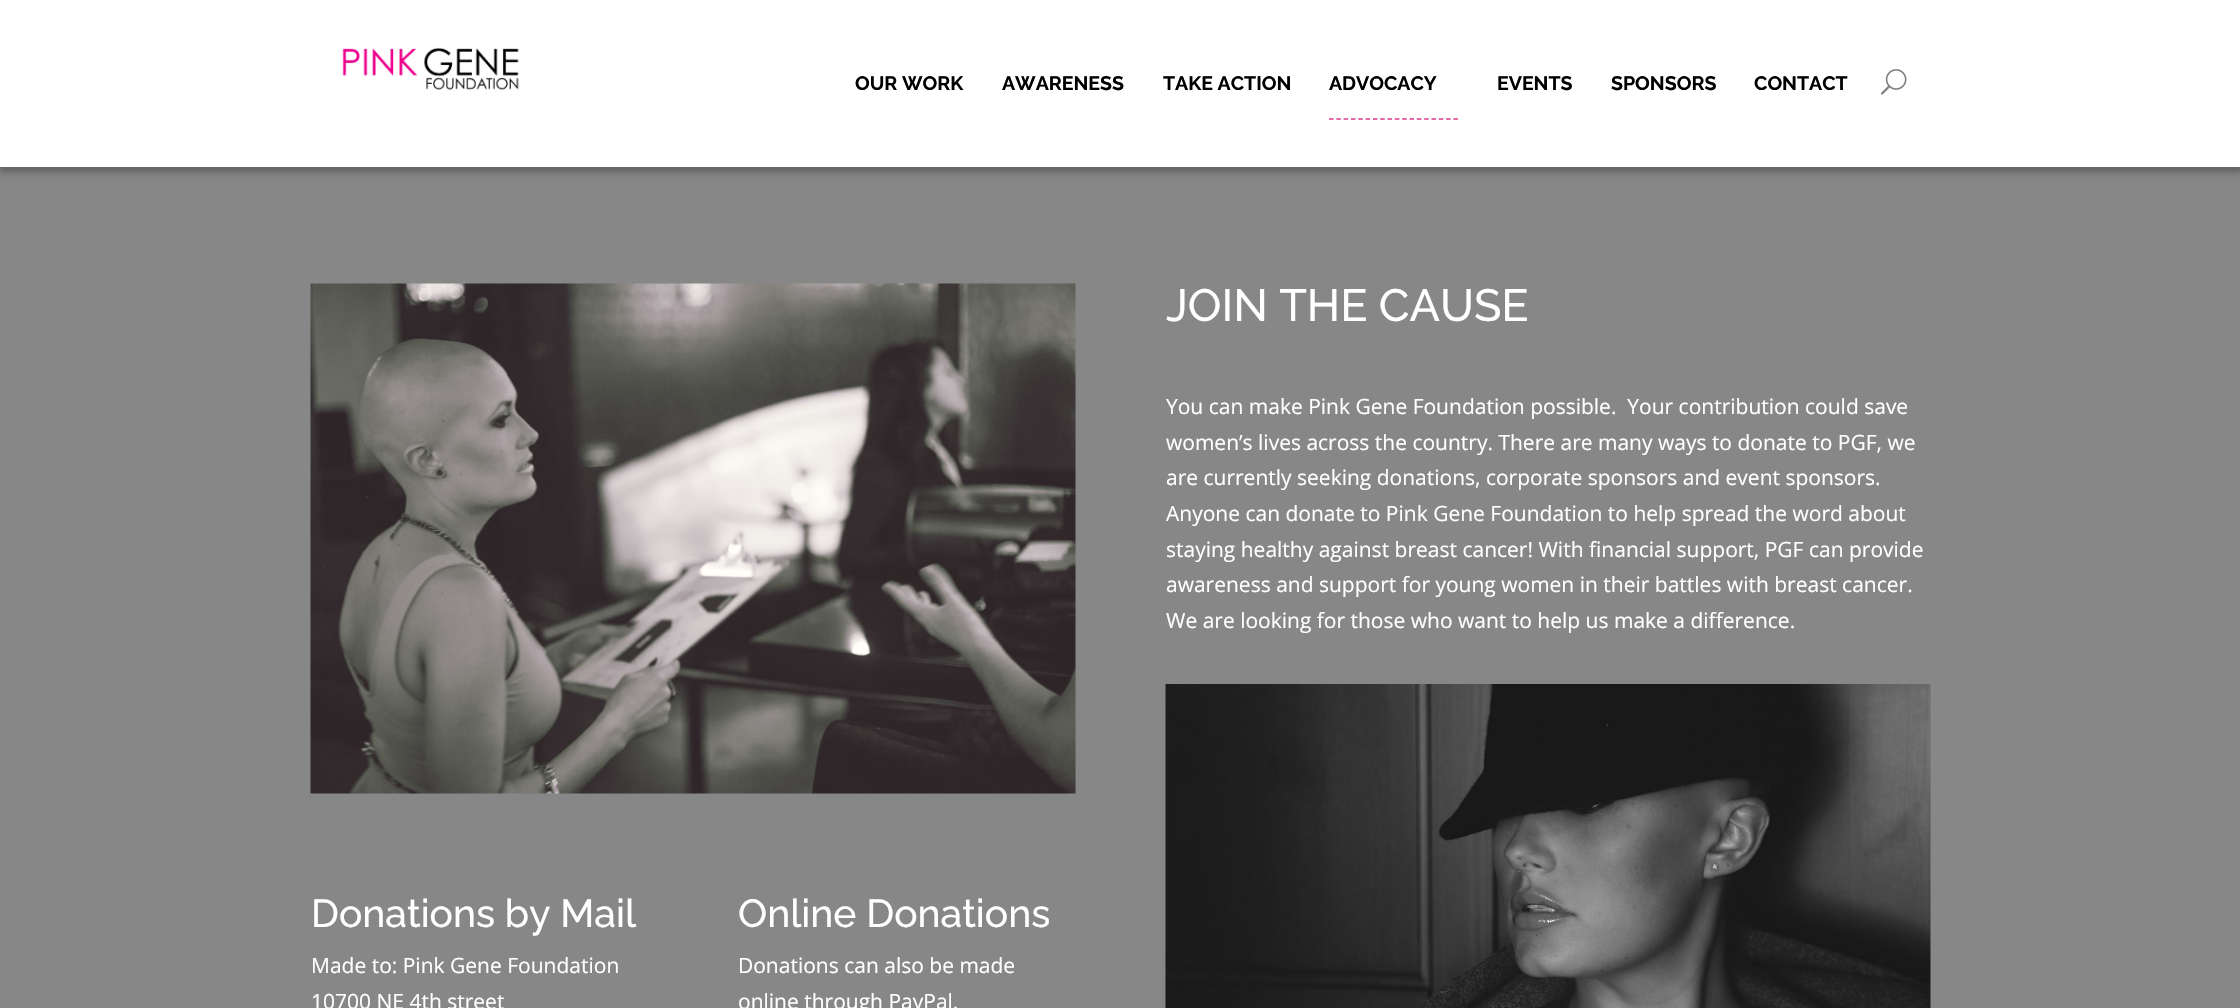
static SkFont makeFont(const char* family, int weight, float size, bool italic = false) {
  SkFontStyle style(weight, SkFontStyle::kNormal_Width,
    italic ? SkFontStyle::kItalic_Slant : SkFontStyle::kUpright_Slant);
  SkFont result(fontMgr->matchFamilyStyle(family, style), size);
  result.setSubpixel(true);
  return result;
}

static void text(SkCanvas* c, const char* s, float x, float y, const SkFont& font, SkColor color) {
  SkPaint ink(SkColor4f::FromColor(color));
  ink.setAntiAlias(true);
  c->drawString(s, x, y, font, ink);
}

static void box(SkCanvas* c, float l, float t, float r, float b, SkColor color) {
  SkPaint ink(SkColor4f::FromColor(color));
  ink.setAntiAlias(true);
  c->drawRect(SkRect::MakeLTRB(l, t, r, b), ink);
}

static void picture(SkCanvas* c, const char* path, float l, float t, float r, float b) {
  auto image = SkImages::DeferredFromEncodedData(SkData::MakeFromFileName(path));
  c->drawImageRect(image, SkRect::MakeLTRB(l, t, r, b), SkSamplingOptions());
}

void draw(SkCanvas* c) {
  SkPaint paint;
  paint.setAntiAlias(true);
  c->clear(0xff878787);
  paint.setColor(0x40000000);
  paint.setMaskFilter(SkMaskFilter::MakeBlur(kNormal_SkBlurStyle, 3));
  c->drawRect(SkRect::MakeLTRB(-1, 3, 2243, 173), paint);
  paint.setMaskFilter(nullptr);
  box(c, 0, 0, 2240, 167, 0xffffffff);
  picture(c, "img_01.png", 342, 47, 519, 90);
  SkFont face1 = makeFont("Raleway", 700, 19.5f);
  text(c, "OUR WORK", 855, 90, face1, 0xff000000);
  text(c, "AWARENESS", 1002, 90, face1, 0xff000000);
  text(c, "TAKE ACTION", 1163, 90, face1, 0xff000000);
  paint.setStyle(SkPaint::kStroke_Style);
  paint.setStrokeWidth(1.5f);
  paint.setColor(0xffdb3889);
  paint.setPathEffect(SkDashPathEffect::Make({{4.5f, 2.82f}}, 0));
  c->drawPath(SkPathBuilder().moveTo(1329, 119).lineTo(1458, 119).detach(), paint);
  paint.setPathEffect(nullptr);
  text(c, "ADVOCACY", 1329, 90, face1, 0xff000000);
  text(c, "EVENTS", 1497, 90, face1, 0xff000000);
  text(c, "SPONSORS", 1611, 90, face1, 0xff000000);
  text(c, "CONTACT", 1754, 90, face1, 0xff000000);
  picture(c, "img_02.png", 1880, 69, 1907, 95);
  SkFont face2 = makeFont("Raleway", 500, 45);
  text(c, "JOIN THE CAUSE", 1166, 321, face2, 0xffffffff);
  SkFont face3 = makeFont("Open Sans", 400, 21);
  text(c, "You can make Pink Gene Foundation possible.  Your contribution could save", 1166, 414, face3, 0xffffffff);
  text(c, "women’s lives across the country. There are many ways to donate to PGF, we", 1166, 450, face3, 0xffffffff);
  text(c, "are currently seeking donations, corporate sponsors and event sponsors.", 1166, 485, face3, 0xffffffff);
  text(c, "Anyone can donate to Pink Gene Foundation to help spread the word about", 1166, 521, face3, 0xffffffff);
  text(c, "staying healthy against breast cancer! With financial support, PGF can provide", 1166, 557, face3, 0xffffffff);
  text(c, "awareness and support for young women in their battles with breast cancer.", 1166, 592, face3, 0xffffffff);
  text(c, "We are looking for those who want to help us make a difference.", 1166, 628, face3, 0xffffffff);
  picture(c, "img_03.png", 1165, 684, 1931, 1008);
  picture(c, "img_04.png", 310, 283, 1076, 794);
  SkFont face4 = makeFont("Raleway", 500, 39);
  text(c, "Donations by Mail", 311, 927, face4, 0xffffffff);
  text(c, "Made to: Pink Gene Foundation", 311, 973, face3, 0xffffffff);
  text(c, "10700 NE 4th street", 311, 1009, face3, 0xffffffff);
  text(c, "Online Donations", 738, 927, face4, 0xffffffff);
  text(c, "Donations can also be made", 738, 973, face3, 0xffffffff);
  text(c, "online through PayPal.", 738, 1009, face3, 0xffffffff);
}
